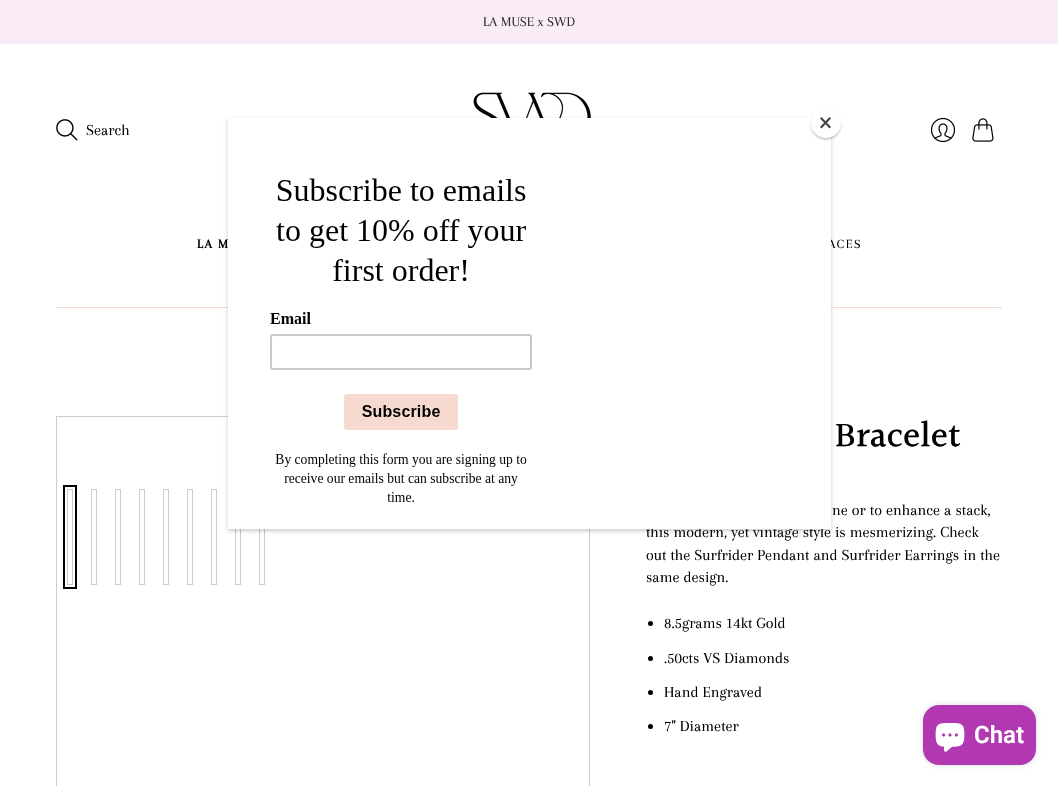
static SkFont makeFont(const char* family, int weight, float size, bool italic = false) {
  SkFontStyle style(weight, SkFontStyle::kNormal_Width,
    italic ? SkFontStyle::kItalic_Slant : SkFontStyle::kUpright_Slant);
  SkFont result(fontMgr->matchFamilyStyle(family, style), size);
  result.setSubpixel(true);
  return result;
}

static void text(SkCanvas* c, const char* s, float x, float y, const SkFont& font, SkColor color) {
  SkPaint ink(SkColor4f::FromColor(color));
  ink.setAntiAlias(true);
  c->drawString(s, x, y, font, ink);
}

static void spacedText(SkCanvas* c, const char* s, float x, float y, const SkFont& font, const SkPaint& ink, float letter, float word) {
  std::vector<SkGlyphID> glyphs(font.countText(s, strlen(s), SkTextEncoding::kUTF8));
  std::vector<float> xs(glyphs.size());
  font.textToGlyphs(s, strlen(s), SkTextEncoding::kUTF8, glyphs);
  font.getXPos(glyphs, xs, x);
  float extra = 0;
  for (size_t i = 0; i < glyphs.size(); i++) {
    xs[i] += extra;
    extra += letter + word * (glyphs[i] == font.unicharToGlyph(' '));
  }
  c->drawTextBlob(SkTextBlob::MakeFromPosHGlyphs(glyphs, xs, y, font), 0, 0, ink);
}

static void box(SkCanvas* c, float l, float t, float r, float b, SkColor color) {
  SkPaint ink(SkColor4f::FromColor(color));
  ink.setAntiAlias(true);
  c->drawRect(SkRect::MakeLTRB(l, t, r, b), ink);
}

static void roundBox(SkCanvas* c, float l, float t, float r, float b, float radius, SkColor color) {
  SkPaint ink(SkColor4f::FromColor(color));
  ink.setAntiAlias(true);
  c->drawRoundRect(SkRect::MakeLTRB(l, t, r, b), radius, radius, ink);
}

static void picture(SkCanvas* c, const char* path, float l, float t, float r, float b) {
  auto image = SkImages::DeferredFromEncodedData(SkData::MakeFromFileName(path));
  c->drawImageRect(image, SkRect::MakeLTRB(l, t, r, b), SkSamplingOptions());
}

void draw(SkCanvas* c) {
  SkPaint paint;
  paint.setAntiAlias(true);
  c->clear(0xffffffff);
  box(c, 0, 0, 1058, 44, 0xfff9ecf6);
  SkFont face1 = makeFont("Arapey", 400, 14);
  text(c, "LA MUSE x SWD", 483, 26, face1, 0xff2e2e27);
  box(c, 56, 307, 1002, 308, 0xfff6dacf);
  picture(c, "img_05.png", 473, 92, 591, 118);
  paint.setStyle(SkPaint::kStroke_Style);
  paint.setStrokeWidth(1);
  paint.setColor(0xffcccccc);
  c->drawRect(SkRect::MakeLTRB(56.5f, 416.5f, 589.5f, 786.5f), paint);
  c->drawRect(SkRect::MakeLTRB(235.5f, 489.5f, 240.5f, 584.5f), paint);
  c->drawRect(SkRect::MakeLTRB(259.5f, 489.5f, 264.5f, 584.5f), paint);
  paint.setStyle(SkPaint::kFill_Style);
  paint.setColor(0x33000000);
  paint.setMaskFilter(SkMaskFilter::MakeBlur(kNormal_SkBlurStyle, 2));
  c->drawRect(SkRect::MakeLTRB(228, 120, 831, 531), paint);
  paint.setMaskFilter(nullptr);
  SkFont face2 = makeFont("Arapey", 400, 13);
  paint.setColor(0xff000000);
  spacedText(c, "ACES", 828, 248, face2, paint, 1.5f, 0);
  SkFont face3 = makeFont("Arapey", 400, 16);
  text(c, "this modern, yet vintage style is mesmerizing. Check", 646, 537, face3, 0xff000000);
  picture(c, "img_01.png", 228, 118, 831, 529);
  paint.setColor(0x33000000);
  paint.setMaskFilter(SkMaskFilter::MakeBlur(kNormal_SkBlurStyle, 1));
  c->drawRoundRect(SkRect::MakeLTRB(811, 110, 841, 140), 15, 15, paint);
  paint.setMaskFilter(nullptr);
  paint.setColor(0xffffffff);
  c->drawCircle(826, 123, 15, paint);
  paint.setColor(0xff414141);
  c->drawPath(SkPathBuilder().moveTo(829.5f, 117).lineTo(831, 118.5f).lineTo(821.5f, 128.5f).lineTo(820, 127).close().detach(), paint);
  c->drawPath(SkPathBuilder().moveTo(820, 118.5f).lineTo(821.5f, 117).lineTo(831, 127).lineTo(829.5f, 128.5f).close().detach(), paint);
  picture(c, "img_02.png", 56, 119, 78, 141);
  text(c, "Search", 86, 135, face3, 0xff000000);
  picture(c, "img_03.png", 930, 117, 956, 143);
  picture(c, "img_04.png", 972, 118, 994, 142);
  SkFont face4 = makeFont("Arapey", 700, 13);
  paint.setColor(0xff000000);
  spacedText(c, "LA M", 197, 248, face4, paint, 1.5f, 0);
  paint.setStyle(SkPaint::kStroke_Style);
  paint.setStrokeWidth(4);
  c->drawRect(SkRect::MakeLTRB(65, 487, 75, 587), paint);
  paint.setStrokeWidth(2);
  paint.setColor(0xffffffff);
  c->drawRect(SkRect::MakeLTRB(66, 488, 74, 586), paint);
  paint.setStrokeWidth(1);
  paint.setColor(0xffcccccc);
  c->drawRect(SkRect::MakeLTRB(67.5f, 489.5f, 72.5f, 584.5f), paint);
  c->drawRect(SkRect::MakeLTRB(91.5f, 489.5f, 96.5f, 584.5f), paint);
  c->drawRect(SkRect::MakeLTRB(115.5f, 489.5f, 120.5f, 584.5f), paint);
  c->drawRect(SkRect::MakeLTRB(139.5f, 489.5f, 144.5f, 584.5f), paint);
  c->drawRect(SkRect::MakeLTRB(163.5f, 489.5f, 168.5f, 584.5f), paint);
  c->drawRect(SkRect::MakeLTRB(187.5f, 489.5f, 192.5f, 584.5f), paint);
  c->drawRect(SkRect::MakeLTRB(211.5f, 489.5f, 216.5f, 584.5f), paint);
  SkFont face5 = makeFont("Halant", 500, 36);
  text(c, "Bracelet", 835, 448, face5, 0xff000000);
  text(c, "ne or to enhance a stack,", 832, 515, face3, 0xff000000);
  text(c, "out the Surfrider Pendant and Surfrider Earrings in the", 646, 560, face3, 0xff000000);
  text(c, "same design.", 646, 582, face3, 0xff000000);
  paint.setStyle(SkPaint::kFill_Style);
  paint.setColor(0xff000000);
  c->drawCircle(650.5f, 623.5f, 2.5f, paint);
  text(c, "8.5grams 14kt Gold", 664, 628, face3, 0xff000000);
  c->drawCircle(650.5f, 658.5f, 2.5f, paint);
  text(c, ".50cts VS Diamonds", 664, 663, face3, 0xff000000);
  c->drawCircle(650.5f, 692.5f, 2.5f, paint);
  text(c, "Hand Engraved", 664, 697, face3, 0xff000000);
  c->drawCircle(650.5f, 726.5f, 2.5f, paint);
  text(c, "7\" Diameter", 664, 731, face3, 0xff000000);
  paint.setColor(0x26000000);
  paint.setMaskFilter(SkMaskFilter::MakeBlur(kNormal_SkBlurStyle, 2.5f));
  c->drawRoundRect(SkRect::MakeLTRB(923, 705, 1036, 765), 16, 16, paint);
  paint.setMaskFilter(nullptr);
  roundBox(c, 923, 705, 1036, 765, 16, 0xffb138b1);
  picture(c, "img_06.png", 935, 723, 965, 752);
  SkFont face6 = makeFont("Roboto", 600, 24);
  text(c, "Chat", 974, 743, face6, 0xffffffff);
}
